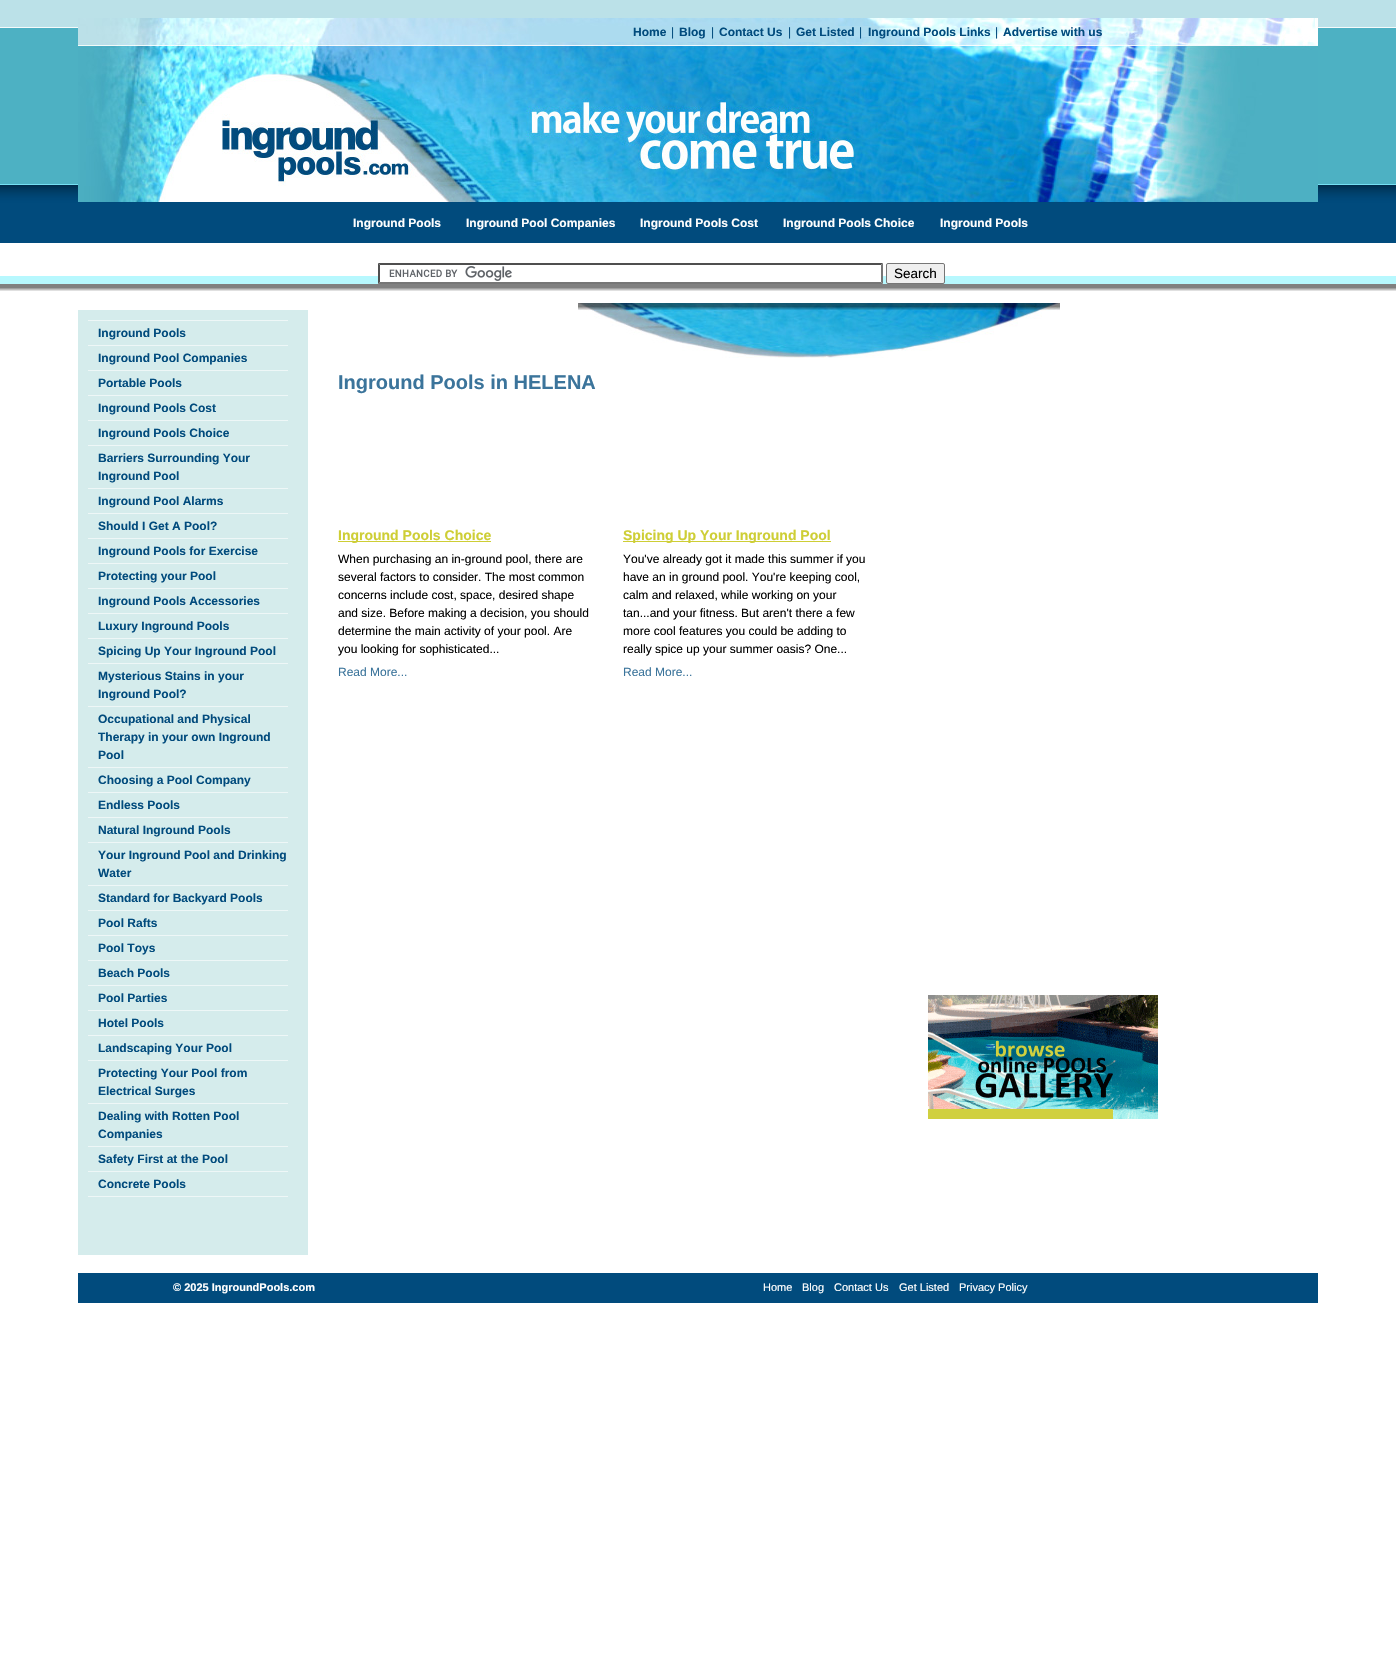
static SkFont makeFont(const char* family, int weight, float size, bool italic = false) {
  SkFontStyle style(weight, SkFontStyle::kNormal_Width,
    italic ? SkFontStyle::kItalic_Slant : SkFontStyle::kUpright_Slant);
  SkFont result(fontMgr->matchFamilyStyle(family, style), size);
  result.setSubpixel(true);
  return result;
}

static void text(SkCanvas* c, const char* s, float x, float y, const SkFont& font, SkColor color) {
  SkPaint ink(SkColor4f::FromColor(color));
  ink.setAntiAlias(true);
  c->drawString(s, x, y, font, ink);
}

static void box(SkCanvas* c, float l, float t, float r, float b, SkColor color) {
  SkPaint ink(SkColor4f::FromColor(color));
  ink.setAntiAlias(true);
  c->drawRect(SkRect::MakeLTRB(l, t, r, b), ink);
}

static void picture(SkCanvas* c, const char* path, float l, float t, float r, float b) {
  auto image = SkImages::DeferredFromEncodedData(SkData::MakeFromFileName(path));
  c->drawImageRect(image, SkRect::MakeLTRB(l, t, r, b), SkSamplingOptions());
}

void draw(SkCanvas* c) {
  SkPaint paint;
  paint.setAntiAlias(true);
  c->clear(0xffffffff);
  picture(c, "img_01.png", 0, 0, 1396, 291);
  picture(c, "img_02.png", 78, 18, 1318, 202);
  SkFont face1 = makeFont("Liberation Sans", 700, 12);
  text(c, "Home", 633, 36, face1, 0xff014b7d);
  SkFont face2 = makeFont("Liberation Sans", 400, 12);
  text(c, "|", 671, 36, face2, 0xff014b7d);
  text(c, "Blog", 679, 36, face1, 0xff014b7d);
  text(c, "|", 711, 36, face2, 0xff014b7d);
  text(c, "Contact Us", 719, 36, face1, 0xff014b7d);
  text(c, "|", 788, 36, face2, 0xff014b7d);
  text(c, "Get Listed", 796, 36, face1, 0xff014b7d);
  text(c, "|", 859, 36, face2, 0xff014b7d);
  text(c, "Inground Pools Links", 868, 36, face1, 0xff014b7d);
  text(c, "|", 995, 36, face2, 0xff014b7d);
  text(c, "Advertise with us", 1003, 36, face1, 0xff014b7d);
  text(c, "Inground Pools", 353, 227, face1, 0xffffffff);
  text(c, "Inground Pool Companies", 466, 227, face1, 0xffffffff);
  text(c, "Inground Pools Cost", 640, 227, face1, 0xffffffff);
  text(c, "Inground Pools Choice", 783, 227, face1, 0xffffffff);
  text(c, "Inground Pools", 940, 227, face1, 0xffffffff);
  box(c, 378, 276, 883, 284, 0xffffffff);
  picture(c, "img_03.png", 389, 266, 512, 281);
  paint.setColor(0xff4f4f4f);
  c->drawPath(SkPathBuilder().moveTo(378, 263).lineTo(883, 263).lineTo(881, 265).lineTo(380, 265).close().detach(), paint);
  paint.setColor(0xff767676);
  c->drawPath(SkPathBuilder().moveTo(883, 263).lineTo(883, 284).lineTo(881, 282).lineTo(881, 265).close().detach(), paint);
  c->drawPath(SkPathBuilder().moveTo(883, 284).lineTo(378, 284).lineTo(380, 282).lineTo(881, 282).close().detach(), paint);
  paint.setColor(0xff4f4f4f);
  c->drawPath(SkPathBuilder().moveTo(378, 284).lineTo(378, 263).lineTo(380, 265).lineTo(380, 282).close().detach(), paint);
  paint.setColor(0xffefefef);
  c->drawRoundRect(SkRect::MakeLTRB(886.5f, 263.5f, 944.5f, 283.5f), 1.5f, 1.5f, paint);
  paint.setStyle(SkPaint::kStroke_Style);
  paint.setStrokeWidth(1);
  paint.setColor(0xff767676);
  c->drawRoundRect(SkRect::MakeLTRB(886.5f, 263.5f, 944.5f, 283.5f), 1.5f, 1.5f, paint);
  SkFont face3 = makeFont("Liberation Sans", 400, 13.5f);
  text(c, "Search", 894, 278, face3, 0xff000000);
  picture(c, "img_04.png", 578, 303, 1060, 358);
  box(c, 78, 310, 308, 1255, 0xffd5ecec);
  box(c, 88, 1196, 288, 1197, 0xffeef7f7);
  box(c, 88, 320, 288, 321, 0xffeef7f7);
  text(c, "Inground Pools", 98, 337, face1, 0xff014b7d);
  box(c, 88, 345, 288, 346, 0xffeef7f7);
  text(c, "Inground Pool Companies", 98, 362, face1, 0xff014b7d);
  box(c, 88, 370, 288, 371, 0xffeef7f7);
  text(c, "Portable Pools", 98, 387, face1, 0xff014b7d);
  box(c, 88, 395, 288, 396, 0xffeef7f7);
  text(c, "Inground Pools Cost", 98, 412, face1, 0xff014b7d);
  box(c, 88, 420, 288, 421, 0xffeef7f7);
  text(c, "Inground Pools Choice", 98, 437, face1, 0xff014b7d);
  box(c, 88, 445, 288, 446, 0xffeef7f7);
  text(c, "Barriers Surrounding Your", 98, 462, face1, 0xff014b7d);
  text(c, "Inground Pool", 98, 480, face1, 0xff014b7d);
  box(c, 88, 488, 288, 489, 0xffeef7f7);
  text(c, "Inground Pool Alarms", 98, 505, face1, 0xff014b7d);
  box(c, 88, 513, 288, 514, 0xffeef7f7);
  text(c, "Should I Get A Pool?", 98, 530, face1, 0xff014b7d);
  box(c, 88, 538, 288, 539, 0xffeef7f7);
  text(c, "Inground Pools for Exercise", 98, 555, face1, 0xff014b7d);
  box(c, 88, 563, 288, 564, 0xffeef7f7);
  text(c, "Protecting your Pool", 98, 580, face1, 0xff014b7d);
  box(c, 88, 588, 288, 589, 0xffeef7f7);
  text(c, "Inground Pools Accessories", 98, 605, face1, 0xff014b7d);
  box(c, 88, 613, 288, 614, 0xffeef7f7);
  text(c, "Luxury Inground Pools", 98, 630, face1, 0xff014b7d);
  box(c, 88, 638, 288, 639, 0xffeef7f7);
  text(c, "Spicing Up Your Inground Pool", 98, 655, face1, 0xff014b7d);
  box(c, 88, 663, 288, 664, 0xffeef7f7);
  text(c, "Mysterious Stains in your", 98, 680, face1, 0xff014b7d);
  text(c, "Inground Pool?", 98, 698, face1, 0xff014b7d);
  box(c, 88, 706, 288, 707, 0xffeef7f7);
  text(c, "Occupational and Physical", 98, 723, face1, 0xff014b7d);
  text(c, "Therapy in your own Inground", 98, 741, face1, 0xff014b7d);
  text(c, "Pool", 98, 759, face1, 0xff014b7d);
  box(c, 88, 767, 288, 768, 0xffeef7f7);
  text(c, "Choosing a Pool Company", 98, 784, face1, 0xff014b7d);
  box(c, 88, 792, 288, 793, 0xffeef7f7);
  text(c, "Endless Pools", 98, 809, face1, 0xff014b7d);
  box(c, 88, 817, 288, 818, 0xffeef7f7);
  text(c, "Natural Inground Pools", 98, 834, face1, 0xff014b7d);
  box(c, 88, 842, 288, 843, 0xffeef7f7);
  text(c, "Your Inground Pool and Drinking", 98, 859, face1, 0xff014b7d);
  text(c, "Water", 98, 877, face1, 0xff014b7d);
  box(c, 88, 885, 288, 886, 0xffeef7f7);
  text(c, "Standard for Backyard Pools", 98, 902, face1, 0xff014b7d);
  box(c, 88, 910, 288, 911, 0xffeef7f7);
  text(c, "Pool Rafts", 98, 927, face1, 0xff014b7d);
  box(c, 88, 935, 288, 936, 0xffeef7f7);
  text(c, "Pool Toys", 98, 952, face1, 0xff014b7d);
  box(c, 88, 960, 288, 961, 0xffeef7f7);
  text(c, "Beach Pools", 98, 977, face1, 0xff014b7d);
  box(c, 88, 985, 288, 986, 0xffeef7f7);
  text(c, "Pool Parties", 98, 1002, face1, 0xff014b7d);
  box(c, 88, 1010, 288, 1011, 0xffeef7f7);
  text(c, "Hotel Pools", 98, 1027, face1, 0xff014b7d);
  box(c, 88, 1035, 288, 1036, 0xffeef7f7);
  text(c, "Landscaping Your Pool", 98, 1052, face1, 0xff014b7d);
  box(c, 88, 1060, 288, 1061, 0xffeef7f7);
  text(c, "Protecting Your Pool from", 98, 1077, face1, 0xff014b7d);
  text(c, "Electrical Surges", 98, 1095, face1, 0xff014b7d);
  box(c, 88, 1103, 288, 1104, 0xffeef7f7);
  text(c, "Dealing with Rotten Pool", 98, 1120, face1, 0xff014b7d);
  text(c, "Companies", 98, 1138, face1, 0xff014b7d);
  box(c, 88, 1146, 288, 1147, 0xffeef7f7);
  text(c, "Safety First at the Pool", 98, 1163, face1, 0xff014b7d);
  box(c, 88, 1171, 288, 1172, 0xffeef7f7);
  text(c, "Concrete Pools", 98, 1188, face1, 0xff014b7d);
  SkFont face4 = makeFont("Liberation Sans", 700, 20);
  text(c, "Inground Pools in HELENA", 338, 389, face4, 0xff3b749b);
  box(c, 338, 541, 491, 542, 0xffcece35);
  SkFont face5 = makeFont("Liberation Sans", 700, 14);
  text(c, "Inground Pools Choice", 338, 540, face5, 0xffcece35);
  text(c, "When purchasing an in-ground pool, there are", 338, 563, face2, 0xff000000);
  text(c, "several factors to consider. The most common", 338, 581, face2, 0xff000000);
  text(c, "concerns include cost, space, desired shape", 338, 599, face2, 0xff000000);
  text(c, "and size. Before making a decision, you should", 338, 617, face2, 0xff000000);
  text(c, "determine the main activity of your pool. Are", 338, 635, face2, 0xff000000);
  text(c, "you looking for sophisticated...", 338, 653, face2, 0xff000000);
  text(c, "Read More...", 338, 676, face2, 0xff3b749b);
  box(c, 623, 541, 831, 542, 0xffcece35);
  text(c, "Spicing Up Your Inground Pool", 623, 540, face5, 0xffcece35);
  text(c, "You've already got it made this summer if you", 623, 563, face2, 0xff000000);
  text(c, "have an in ground pool. You're keeping cool,", 623, 581, face2, 0xff000000);
  text(c, "calm and relaxed, while working on your", 623, 599, face2, 0xff000000);
  text(c, "tan...and your fitness. But aren't there a few", 623, 617, face2, 0xff000000);
  text(c, "more cool features you could be adding to", 623, 635, face2, 0xff000000);
  text(c, "really spice up your summer oasis? One...", 623, 653, face2, 0xff000000);
  text(c, "Read More...", 623, 676, face2, 0xff3b749b);
  picture(c, "img_05.png", 928, 995, 1158, 1119);
  box(c, 78, 1273, 1318, 1303, 0xff014b7d);
  SkFont face6 = makeFont("Liberation Sans", 700, 11);
  text(c, "© 2025 IngroundPools.com", 173, 1291, face6, 0xffffffff);
  SkFont face7 = makeFont("Liberation Sans", 400, 11);
  text(c, "Home", 763, 1291, face7, 0xffffffff);
  text(c, "Blog", 802, 1291, face7, 0xffffffff);
  text(c, "Contact Us", 834, 1291, face7, 0xffffffff);
  text(c, "Get Listed", 899, 1291, face7, 0xffffffff);
  text(c, "Privacy Policy", 959, 1291, face7, 0xffffffff);
}
